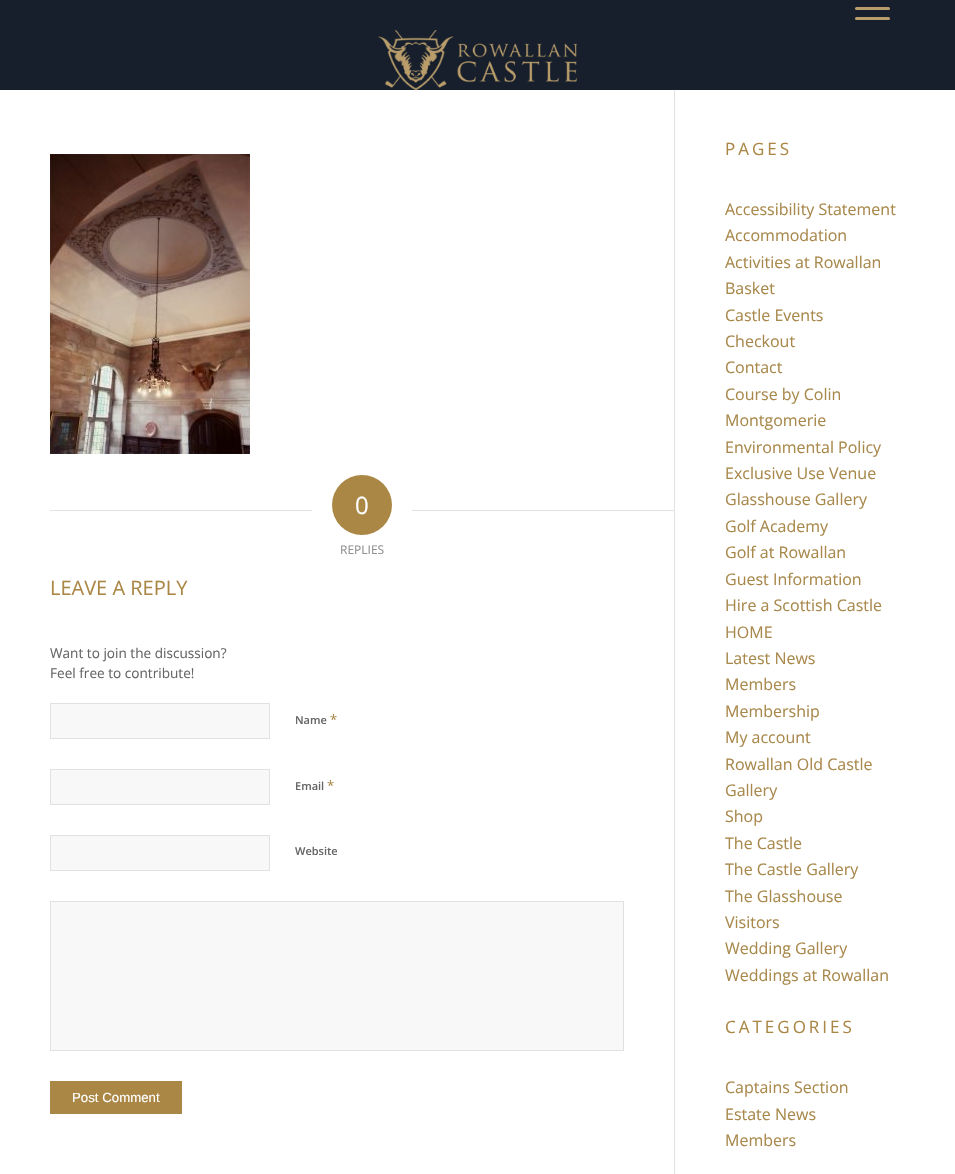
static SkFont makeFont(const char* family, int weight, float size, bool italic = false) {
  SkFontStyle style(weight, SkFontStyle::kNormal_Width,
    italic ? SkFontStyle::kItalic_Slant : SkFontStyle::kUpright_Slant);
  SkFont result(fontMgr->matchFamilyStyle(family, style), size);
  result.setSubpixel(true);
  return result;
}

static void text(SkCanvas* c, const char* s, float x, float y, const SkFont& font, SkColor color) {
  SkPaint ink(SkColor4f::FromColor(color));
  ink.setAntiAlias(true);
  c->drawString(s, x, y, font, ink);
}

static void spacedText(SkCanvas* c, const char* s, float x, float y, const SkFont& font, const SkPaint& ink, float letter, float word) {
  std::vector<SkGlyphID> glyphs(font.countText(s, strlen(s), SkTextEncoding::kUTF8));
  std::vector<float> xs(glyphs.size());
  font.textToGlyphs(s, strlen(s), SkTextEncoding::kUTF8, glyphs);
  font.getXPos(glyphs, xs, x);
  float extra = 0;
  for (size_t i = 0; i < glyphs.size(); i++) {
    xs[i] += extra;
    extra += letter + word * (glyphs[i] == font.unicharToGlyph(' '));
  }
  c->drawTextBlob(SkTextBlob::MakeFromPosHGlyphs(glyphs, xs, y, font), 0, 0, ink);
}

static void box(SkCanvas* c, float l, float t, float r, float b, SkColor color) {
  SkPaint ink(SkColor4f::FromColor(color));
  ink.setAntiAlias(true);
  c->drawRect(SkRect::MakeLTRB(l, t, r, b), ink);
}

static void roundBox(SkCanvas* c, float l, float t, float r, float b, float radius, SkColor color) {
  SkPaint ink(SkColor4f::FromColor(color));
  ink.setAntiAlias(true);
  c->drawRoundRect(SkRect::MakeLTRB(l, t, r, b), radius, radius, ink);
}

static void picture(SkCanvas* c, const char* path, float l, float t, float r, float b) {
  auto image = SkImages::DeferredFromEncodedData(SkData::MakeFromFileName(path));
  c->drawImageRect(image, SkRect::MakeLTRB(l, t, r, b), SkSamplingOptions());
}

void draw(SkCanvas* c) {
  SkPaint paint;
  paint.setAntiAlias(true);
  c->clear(0xffffffff);
  box(c, 0, 0, 955, 90, 0xff171f2c);
  roundBox(c, 855, 7, 890, 10, 1.5f, 0xffb99c6b);
  roundBox(c, 855, 17, 890, 20, 1.5f, 0xffb99c6b);
  picture(c, "img_01.png", 378, 30, 578, 90);
  box(c, 674, 90, 675, 1174, 0xffe1e1e1);
  picture(c, "img_02.png", 50, 154, 250, 454);
  box(c, 50, 510, 312, 511, 0xffe1e1e1);
  paint.setColor(0xffaa8745);
  c->drawCircle(362, 505, 30, paint);
  SkFont face1 = makeFont("Open Sans", 400, 24);
  text(c, "0", 355, 514, face1, 0xffffffff);
  box(c, 412, 510, 674, 511, 0xffe1e1e1);
  SkFont face2 = makeFont("Open Sans", 400, 12);
  text(c, "REPLIES", 340, 554, face2, 0xff919191);
  SkFont face3 = makeFont("Open Sans", 400, 20);
  text(c, "LEAVE A REPLY", 50, 595, face3, 0xffaa8745);
  SkFont face4 = makeFont("Open Sans", 400, 13.6f);
  text(c, "Want to join the discussion?", 50, 658, face4, 0xff666666);
  text(c, "Feel free to contribute!", 50, 678, face4, 0xff666666);
  paint.setColor(0xfff8f8f8);
  c->drawRect(SkRect::MakeLTRB(50.5f, 703.5f, 269.5f, 738.5f), paint);
  paint.setStyle(SkPaint::kStroke_Style);
  paint.setStrokeWidth(1);
  paint.setColor(0xffe1e1e1);
  c->drawRect(SkRect::MakeLTRB(50.5f, 703.5f, 269.5f, 738.5f), paint);
  SkFont face5 = makeFont("Open Sans", 600, 11);
  text(c, "Name", 295, 724, face5, 0xff666666);
  SkFont face6 = makeFont("Open Sans", 400, 13);
  text(c, "*", 330, 724, face6, 0xffaa8745);
  paint.setStyle(SkPaint::kFill_Style);
  paint.setColor(0xfff8f8f8);
  c->drawRect(SkRect::MakeLTRB(50.5f, 769.5f, 269.5f, 804.5f), paint);
  paint.setStyle(SkPaint::kStroke_Style);
  paint.setColor(0xffe1e1e1);
  c->drawRect(SkRect::MakeLTRB(50.5f, 769.5f, 269.5f, 804.5f), paint);
  text(c, "Email", 295, 790, face5, 0xff666666);
  text(c, "*", 327, 790, face6, 0xffaa8745);
  paint.setStyle(SkPaint::kFill_Style);
  paint.setColor(0xfff8f8f8);
  c->drawRect(SkRect::MakeLTRB(50.5f, 835.5f, 269.5f, 870.5f), paint);
  paint.setStyle(SkPaint::kStroke_Style);
  paint.setColor(0xffe1e1e1);
  c->drawRect(SkRect::MakeLTRB(50.5f, 835.5f, 269.5f, 870.5f), paint);
  text(c, "Website", 295, 855, face5, 0xff666666);
  paint.setStyle(SkPaint::kFill_Style);
  paint.setColor(0xfff8f8f8);
  c->drawRect(SkRect::MakeLTRB(50.5f, 901.5f, 623.5f, 1050.5f), paint);
  paint.setStyle(SkPaint::kStroke_Style);
  paint.setColor(0xffe1e1e1);
  c->drawRect(SkRect::MakeLTRB(50.5f, 901.5f, 623.5f, 1050.5f), paint);
  box(c, 50, 1081, 182, 1114, 0xffaa8745);
  SkFont face7 = makeFont("Liberation Sans", 400, 13.25f);
  text(c, "Post Comment", 72, 1102, face7, 0xffffffff);
  SkFont face8 = makeFont("Open Sans", 400, 17);
  paint.setStyle(SkPaint::kFill_Style);
  paint.setColor(0xffaa8745);
  spacedText(c, "PAGES", 725, 155, face8, paint, 3, 0);
  SkFont face9 = makeFont("Open Sans", 400, 16);
  text(c, "Accessibility Statement", 725, 215, face9, 0xffa8884b);
  text(c, "Accommodation", 725, 241, face9, 0xffa8884b);
  text(c, "Activities at Rowallan", 725, 268, face9, 0xffa8884b);
  text(c, "Basket", 725, 294, face9, 0xffa8884b);
  text(c, "Castle Events", 725, 321, face9, 0xffa8884b);
  text(c, "Checkout", 725, 347, face9, 0xffa8884b);
  text(c, "Contact", 725, 373, face9, 0xffa8884b);
  text(c, "Course by Colin", 725, 400, face9, 0xffa8884b);
  text(c, "Montgomerie", 725, 426, face9, 0xffa8884b);
  text(c, "Environmental Policy", 725, 453, face9, 0xffa8884b);
  text(c, "Exclusive Use Venue", 725, 479, face9, 0xffa8884b);
  text(c, "Glasshouse Gallery", 725, 505, face9, 0xffa8884b);
  text(c, "Golf Academy", 725, 532, face9, 0xffa8884b);
  text(c, "Golf at Rowallan", 725, 558, face9, 0xffa8884b);
  text(c, "Guest Information", 725, 585, face9, 0xffa8884b);
  text(c, "Hire a Scottish Castle", 725, 611, face9, 0xffa8884b);
  text(c, "HOME", 725, 638, face9, 0xffa8884b);
  text(c, "Latest News", 725, 664, face9, 0xffa8884b);
  text(c, "Members", 725, 690, face9, 0xffa8884b);
  text(c, "Membership", 725, 717, face9, 0xffa8884b);
  text(c, "My account", 725, 743, face9, 0xffa8884b);
  text(c, "Rowallan Old Castle", 725, 770, face9, 0xffa8884b);
  text(c, "Gallery", 725, 796, face9, 0xffa8884b);
  text(c, "Shop", 725, 822, face9, 0xffa8884b);
  text(c, "The Castle", 725, 849, face9, 0xffa8884b);
  text(c, "The Castle Gallery", 725, 875, face9, 0xffa8884b);
  text(c, "The Glasshouse", 725, 902, face9, 0xffa8884b);
  text(c, "Visitors", 725, 928, face9, 0xffa8884b);
  text(c, "Wedding Gallery", 725, 954, face9, 0xffa8884b);
  text(c, "Weddings at Rowallan", 725, 981, face9, 0xffa8884b);
  spacedText(c, "CATEGORIES", 725, 1033, face8, paint, 3, 0);
  text(c, "Captains Section", 725, 1093, face9, 0xffa8884b);
  text(c, "Estate News", 725, 1120, face9, 0xffa8884b);
  text(c, "Members", 725, 1146, face9, 0xffa8884b);
}
